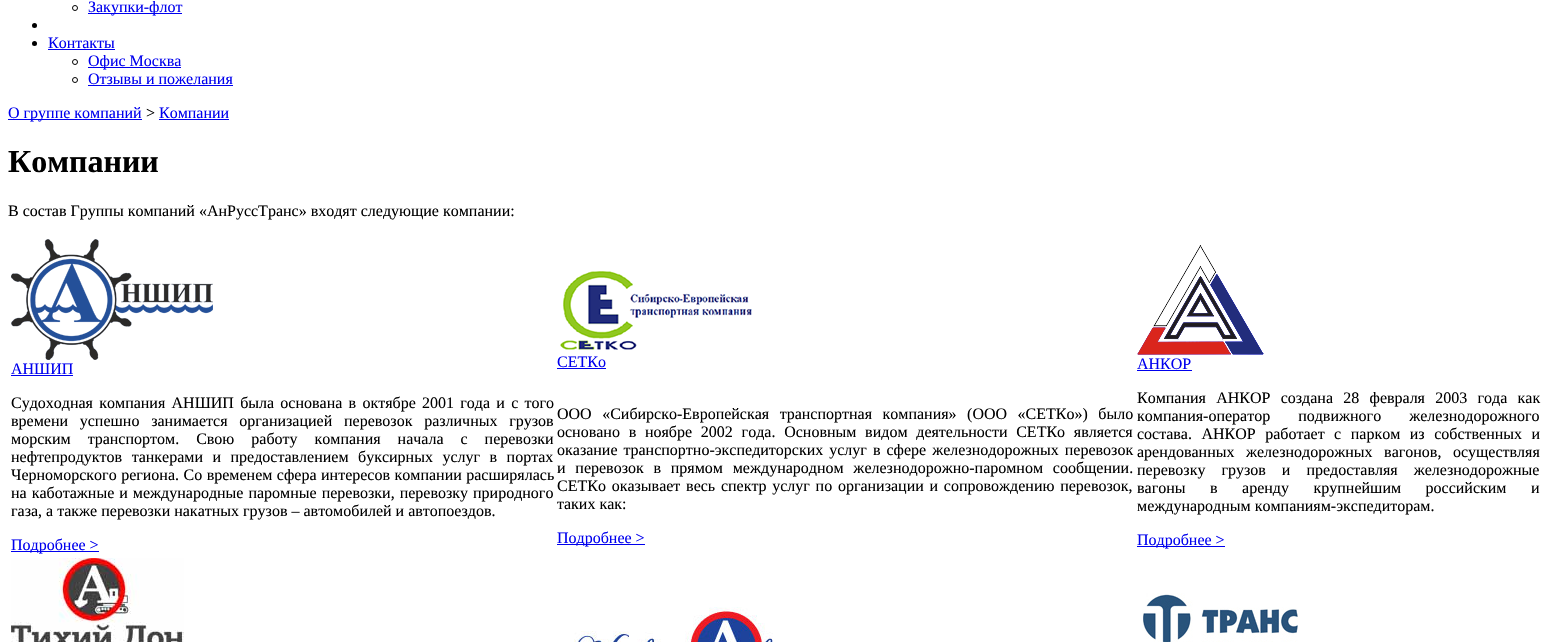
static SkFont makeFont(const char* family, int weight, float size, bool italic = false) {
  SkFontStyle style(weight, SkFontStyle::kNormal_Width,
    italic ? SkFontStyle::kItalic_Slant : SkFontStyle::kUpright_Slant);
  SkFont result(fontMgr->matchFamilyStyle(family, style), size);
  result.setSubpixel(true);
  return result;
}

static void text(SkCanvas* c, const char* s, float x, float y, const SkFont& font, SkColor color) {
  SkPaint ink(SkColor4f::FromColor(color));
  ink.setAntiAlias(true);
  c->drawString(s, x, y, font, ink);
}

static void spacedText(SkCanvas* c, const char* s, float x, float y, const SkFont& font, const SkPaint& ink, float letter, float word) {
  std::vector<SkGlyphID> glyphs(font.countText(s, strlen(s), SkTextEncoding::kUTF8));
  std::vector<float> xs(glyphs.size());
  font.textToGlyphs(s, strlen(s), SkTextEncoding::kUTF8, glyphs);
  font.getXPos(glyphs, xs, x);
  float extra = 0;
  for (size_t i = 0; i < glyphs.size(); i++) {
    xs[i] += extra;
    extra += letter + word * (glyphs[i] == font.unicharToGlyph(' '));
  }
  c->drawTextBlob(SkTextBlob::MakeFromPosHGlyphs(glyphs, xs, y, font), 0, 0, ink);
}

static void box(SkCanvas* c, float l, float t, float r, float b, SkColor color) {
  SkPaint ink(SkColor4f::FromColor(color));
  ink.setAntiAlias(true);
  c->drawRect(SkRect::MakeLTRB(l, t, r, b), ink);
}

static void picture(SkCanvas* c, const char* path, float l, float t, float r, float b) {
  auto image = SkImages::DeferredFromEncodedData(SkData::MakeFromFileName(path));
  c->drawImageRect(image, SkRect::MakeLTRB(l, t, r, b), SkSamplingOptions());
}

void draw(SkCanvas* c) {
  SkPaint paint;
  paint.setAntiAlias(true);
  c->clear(0xffffffff);
  paint.setStyle(SkPaint::kStroke_Style);
  paint.setStrokeWidth(1);
  paint.setColor(0xff000000);
  c->drawCircle(75, 8, 2.5f, paint);
  box(c, 88, 13, 182, 14, 0xff0000ee);
  SkFont face1 = makeFont("Liberation Serif", 400, 16);
  text(c, "Закупки-флот", 88, 12, face1, 0xff0000ee);
  paint.setStyle(SkPaint::kFill_Style);
  c->drawCircle(34.5f, 25.5f, 2.5f, paint);
  c->drawCircle(34.5f, 43.5f, 2.5f, paint);
  text(c, "Контакты", 48, 48, face1, 0xff0000ee);
  box(c, 48, 49, 115, 50, 0xff0000ee);
  paint.setStyle(SkPaint::kStroke_Style);
  c->drawCircle(75, 62, 2.5f, paint);
  box(c, 88, 67, 181, 68, 0xff0000ee);
  text(c, "Офис Москва", 88, 66, face1, 0xff0000ee);
  c->drawCircle(75, 80, 2.5f, paint);
  text(c, "Отзывы и пожелания", 88, 84, face1, 0xff0000ee);
  box(c, 88, 85, 233, 86, 0xff0000ee);
  box(c, 8, 119, 142, 120, 0xff0000ee);
  text(c, "О группе компаний", 8, 118, face1, 0xff0000ee);
  text(c, ">", 146, 118, face1, 0xff000000);
  text(c, "Компании", 159, 118, face1, 0xff0000ee);
  box(c, 159, 119, 229, 120, 0xff0000ee);
  SkFont face2 = makeFont("Liberation Serif", 700, 32);
  text(c, "Компании", 8, 172, face2, 0xff000000);
  text(c, "В состав Группы компаний «АнРуссТранс» входят следующие компании:", 8, 216, face1, 0xff000000);
  picture(c, "img_01.png", 11, 239, 213, 360);
  text(c, "АНШИП", 11, 374, face1, 0xff0000ee);
  box(c, 11, 375, 73, 376, 0xff0000ee);
  paint.setStyle(SkPaint::kFill_Style);
  spacedText(c, "Судоходная компания АНШИП была основана в октябре 2001 года и с того", 11, 408, face1, paint, 0, 2.25f);
  spacedText(c, "времени успешно занимается организацией перевозок различных грузов", 11, 426, face1, paint, 0, 7.75f);
  spacedText(c, "морским транспортом. Свою работу компания начала с перевозки", 11, 444, face1, paint, 0, 13);
  spacedText(c, "нефтепродуктов танкерами и предоставлением буксирных услуг в портах", 11, 462, face1, paint, 0, 5.5f);
  spacedText(c, "Черноморского региона. Со временем сфера интересов компании расширялась", 11, 480, face1, paint, 0, 0.5f);
  spacedText(c, "на каботажные и международные паромные перевозки, перевозку природного", 11, 498, face1, paint, 0, 1);
  text(c, "газа, а также перевозки накатных грузов – автомобилей и автопоездов.", 11, 516, face1, 0xff000000);
  box(c, 11, 551, 99, 552, 0xff0000ee);
  text(c, "Подробнее >", 11, 550, face1, 0xff0000ee);
  picture(c, "img_02.png", 560, 271, 752, 350);
  text(c, "СЕТКо", 557, 367, face1, 0xff0000ee);
  box(c, 557, 368, 606, 369, 0xff0000ee);
  spacedText(c, "ООО «Сибирско-Европейская транспортная компания» (ООО «СЕТКо») было", 557, 419, face1, paint, 0, 6.5f);
  spacedText(c, "основано в ноябре 2002 года. Основным видом деятельности СЕТКо является", 557, 437, face1, paint, 0, 4.75f);
  spacedText(c, "оказание транспортно-экспедиторских услуг в сфере железнодорожных перевозок", 557, 455, face1, paint, 0, 2);
  spacedText(c, "и перевозок в прямом международном железнодорожно-паромном сообщении.", 557, 473, face1, paint, 0, 5.75f);
  spacedText(c, "СЕТКо оказывает весь спектр услуг по организации и сопровождению перевозок,", 557, 491, face1, paint, 0, 1.75f);
  text(c, "таких как:", 557, 509, face1, 0xff000000);
  box(c, 557, 544, 645, 545, 0xff0000ee);
  text(c, "Подробнее >", 557, 543, face1, 0xff0000ee);
  picture(c, "img_03.png", 1137, 245, 1264, 355);
  text(c, "АНКОР", 1137, 369, face1, 0xff0000ee);
  box(c, 1137, 370, 1192, 371, 0xff0000ee);
  spacedText(c, "Компания АНКОР создана 28 февраля 2003 года как", 1137, 403, face1, paint, 0, 6.25f);
  spacedText(c, "компания-оператор подвижного железнодорожного", 1137, 421, face1, paint, 0, 24);
  spacedText(c, "состава. АНКОР работает с парком из собственных и", 1137, 439, face1, paint, 0, 5.5f);
  spacedText(c, "арендованных железнодорожных вагонов, осуществляя", 1137, 457, face1, paint, 0, 7.5f);
  spacedText(c, "перевозку грузов и предоставляя железнодорожные", 1137, 475, face1, paint, 0, 12);
  spacedText(c, "вагоны в аренду крупнейшим российским и", 1137, 493, face1, paint, 0, 20.5f);
  text(c, "международным компаниям-экспедиторам.", 1137, 511, face1, 0xff000000);
  box(c, 1137, 546, 1225, 547, 0xff0000ee);
  text(c, "Подробнее >", 1137, 545, face1, 0xff0000ee);
  picture(c, "img_04.png", 11, 558, 184, 642);
  picture(c, "img_05.png", 574, 607, 773, 642);
  picture(c, "img_06.png", 1142, 593, 1298, 642);
}
